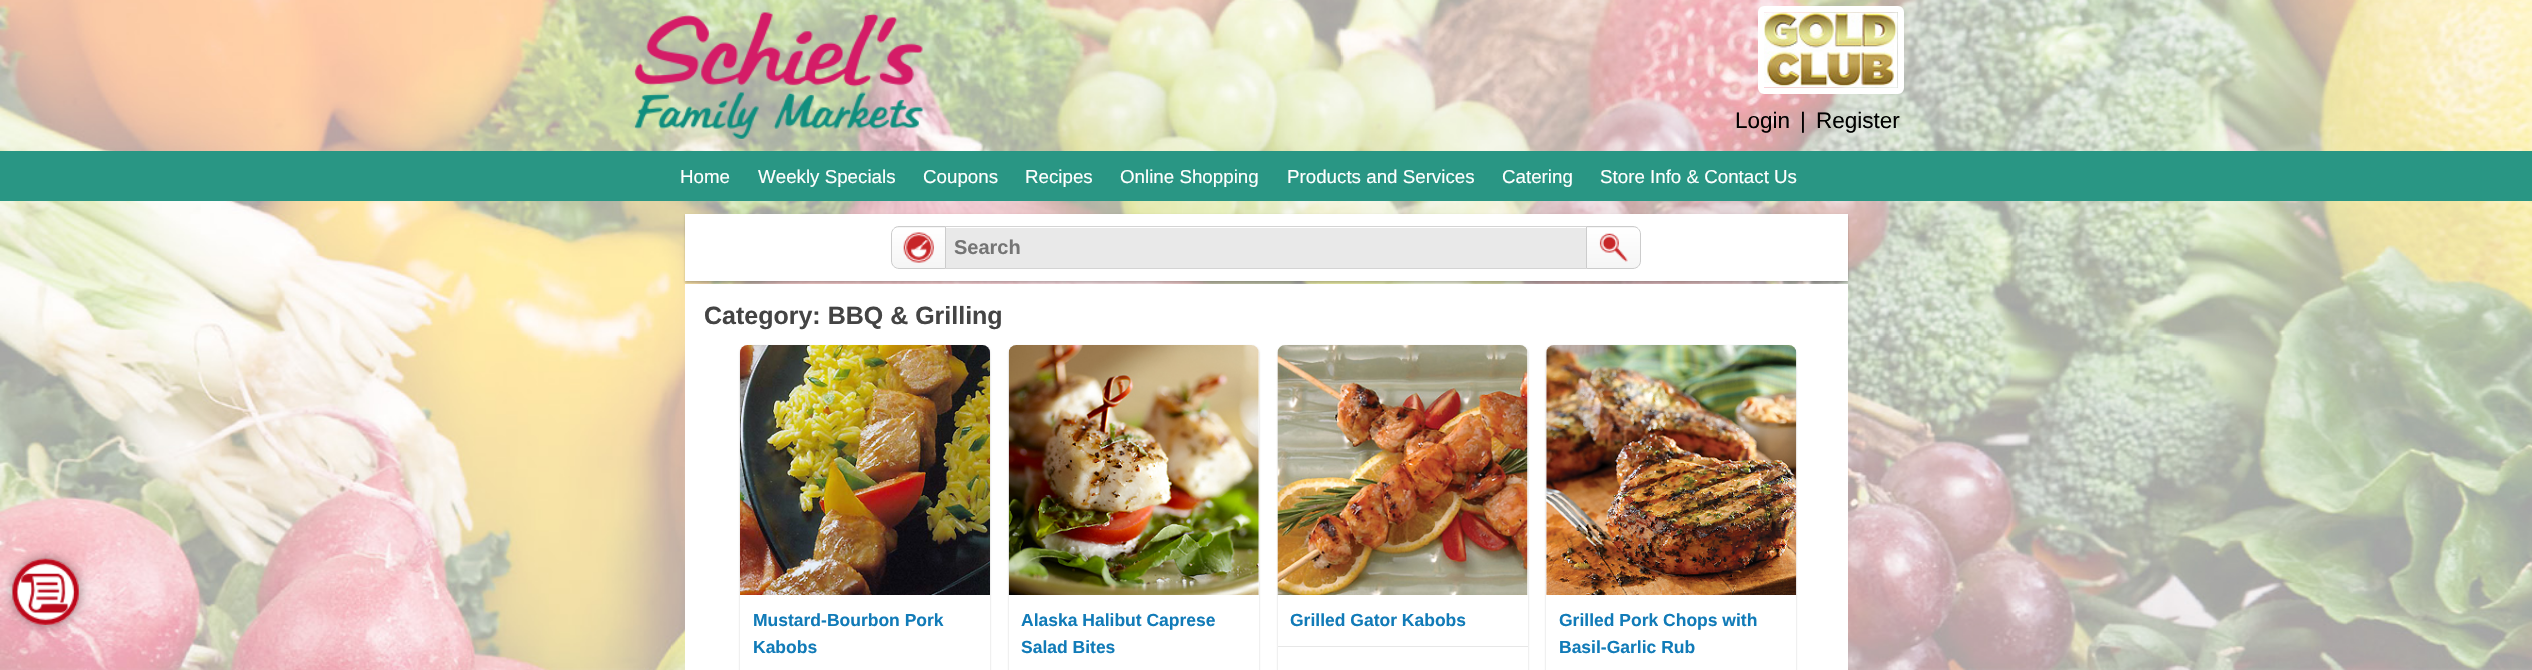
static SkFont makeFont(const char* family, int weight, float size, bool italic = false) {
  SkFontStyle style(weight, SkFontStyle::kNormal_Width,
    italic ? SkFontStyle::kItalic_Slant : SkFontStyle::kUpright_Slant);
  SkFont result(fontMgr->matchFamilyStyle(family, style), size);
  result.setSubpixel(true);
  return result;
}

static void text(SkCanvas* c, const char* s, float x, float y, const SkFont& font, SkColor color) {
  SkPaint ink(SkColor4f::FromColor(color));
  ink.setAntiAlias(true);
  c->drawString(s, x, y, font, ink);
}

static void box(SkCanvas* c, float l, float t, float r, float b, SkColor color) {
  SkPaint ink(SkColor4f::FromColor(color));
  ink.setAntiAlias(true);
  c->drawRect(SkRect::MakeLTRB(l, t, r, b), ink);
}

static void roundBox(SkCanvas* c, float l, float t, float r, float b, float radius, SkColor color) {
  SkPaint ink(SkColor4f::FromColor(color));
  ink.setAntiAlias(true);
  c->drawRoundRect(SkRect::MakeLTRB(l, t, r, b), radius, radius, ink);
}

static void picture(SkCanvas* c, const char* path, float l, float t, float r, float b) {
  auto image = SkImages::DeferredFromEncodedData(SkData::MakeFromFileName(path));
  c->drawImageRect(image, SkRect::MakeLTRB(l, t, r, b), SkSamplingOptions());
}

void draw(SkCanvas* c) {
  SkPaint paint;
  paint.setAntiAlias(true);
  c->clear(0xffffffff);
  picture(c, "img_01.png", 0, 0, 2532, 670);
  c->save();
  c->clipPath(SkPathBuilder(SkPathFillType::kEvenOdd).moveTo(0, 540).lineTo(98, 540).lineTo(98, 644).lineTo(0, 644).close().moveTo(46, 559).cubicTo(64, 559, 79, 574, 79, 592).cubicTo(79, 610, 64, 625, 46, 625).cubicTo(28, 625, 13, 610, 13, 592).cubicTo(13, 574, 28, 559, 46, 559).close().detach(), true);
  paint.setColor(0x6b000000);
  paint.setMaskFilter(SkMaskFilter::MakeBlur(kNormal_SkBlurStyle, 6));
  c->drawRoundRect(SkRect::MakeLTRB(13, 559, 79, 625), 33, 33, paint);
  paint.setMaskFilter(nullptr);
  c->restore();
  picture(c, "img_02.png", 12, 558, 79, 625);
  picture(c, "img_03.png", 634, 12, 923, 139);
  picture(c, "img_04.png", 1764, 12, 1898, 88);
  paint.setStyle(SkPaint::kStroke_Style);
  paint.setStrokeWidth(6);
  paint.setColor(0xffffffff);
  c->drawRoundRect(SkRect::MakeLTRB(1761, 9, 1901, 91), 3, 3, paint);
  SkFont face1 = makeFont("Liberation Sans", 400, 22.5f);
  text(c, "Login", 1735, 128, face1, 0xff000000);
  text(c, "|", 1800, 128, face1, 0xff000000);
  text(c, "Register", 1816, 128, face1, 0xff000000);
  box(c, 0, 151, 2532, 201, 0xff299684);
  SkFont face2 = makeFont("Liberation Sans", 400, 18.75f);
  text(c, "Home", 680, 183, face2, 0xffffffff);
  text(c, "Weekly Specials", 758, 183, face2, 0xffffffff);
  text(c, "Coupons", 923, 183, face2, 0xffffffff);
  text(c, "Recipes", 1025, 183, face2, 0xffffffff);
  text(c, "Online Shopping", 1120, 183, face2, 0xffffffff);
  text(c, "Products and Services", 1287, 183, face2, 0xffffffff);
  text(c, "Catering", 1502, 183, face2, 0xffffffff);
  text(c, "Store Info & Contact Us", 1600, 183, face2, 0xffffffff);
  paint.setStyle(SkPaint::kFill_Style);
  paint.setColor(0x38000000);
  paint.setMaskFilter(SkMaskFilter::MakeBlur(kNormal_SkBlurStyle, 1));
  c->drawRect(SkRect::MakeLTRB(685, 215, 1848, 283), paint);
  paint.setMaskFilter(nullptr);
  box(c, 685, 214, 1848, 281, 0xffffffff);
  c->save();
  c->clipPath(SkPathBuilder().moveTo(899, 226).lineTo(946, 226).lineTo(946, 269).lineTo(899, 269).cubicTo(894.5f, 269, 891, 265.5f, 891, 261).lineTo(891, 234).cubicTo(891, 229.5f, 894.5f, 226, 899, 226).close().detach(), true);
  {
    const SkColor colors[] = {0xffffffff, 0xfff5f5f5};
    const float stops[] = {0, 1};
    const SkPoint ends[] = {{919, 188}, {919, 228}};
    paint.setShader(SkGradientShader::MakeLinear(ends, colors, stops, 2, SkTileMode::kClamp));
    paint.setAlpha(255);
  }
  c->drawRect(SkRect::MakeLTRB(891, 226, 946, 228), paint);
  {
    const SkColor colors[] = {0xffffffff, 0xfff5f5f5};
    const float stops[] = {0, 1};
    const SkPoint ends[] = {{919, 228}, {919, 268}};
    paint.setShader(SkGradientShader::MakeLinear(ends, colors, stops, 2, SkTileMode::kClamp));
    paint.setAlpha(255);
  }
  c->drawRect(SkRect::MakeLTRB(891, 228, 945, 268), paint);
  c->restore();
  paint.setStyle(SkPaint::kStroke_Style);
  paint.setStrokeWidth(1);
  paint.setShader(nullptr);
  paint.setColor(0xffcccccc);
  c->drawPath(SkPathBuilder().moveTo(899, 226.5f).lineTo(945.5f, 226.5f).lineTo(945.5f, 268.5f).lineTo(899, 268.5f).cubicTo(895, 268.5f, 891.5f, 265, 891.5f, 261).lineTo(891.5f, 234).cubicTo(891.5f, 230, 895, 226.5f, 899, 226.5f).close().detach(), paint);
  picture(c, "img_05.png", 903, 232, 934, 263);
  box(c, 946, 228, 1586, 268, 0xffe9e9e9);
  box(c, 946, 226, 1586, 227, 0xffd4d4d4);
  box(c, 946, 268, 1586, 269, 0xffd4d4d4);
  SkFont face3 = makeFont("Liberation Sans", 700, 20);
  text(c, "Search", 954, 254, face3, 0xff757575);
  c->save();
  c->clipPath(SkPathBuilder().moveTo(1586, 226).lineTo(1633, 226).cubicTo(1637.5f, 226, 1641, 229.5f, 1641, 234).lineTo(1641, 261).cubicTo(1641, 265.5f, 1637.5f, 269, 1633, 269).lineTo(1586, 269).close().detach(), true);
  paint.setStyle(SkPaint::kFill_Style);
  {
    const SkColor colors[] = {0xffffffff, 0xfff5f5f5};
    const float stops[] = {0, 1};
    const SkPoint ends[] = {{1614, 188}, {1614, 228}};
    paint.setShader(SkGradientShader::MakeLinear(ends, colors, stops, 2, SkTileMode::kClamp));
    paint.setAlpha(255);
  }
  c->drawRect(SkRect::MakeLTRB(1586, 226, 1641, 228), paint);
  {
    const SkColor colors[] = {0xffffffff, 0xfff5f5f5};
    const float stops[] = {0, 1};
    const SkPoint ends[] = {{1614, 228}, {1614, 268}};
    paint.setShader(SkGradientShader::MakeLinear(ends, colors, stops, 2, SkTileMode::kClamp));
    paint.setAlpha(255);
  }
  c->drawRect(SkRect::MakeLTRB(1587, 228, 1641, 268), paint);
  c->restore();
  paint.setStyle(SkPaint::kStroke_Style);
  paint.setShader(nullptr);
  paint.setColor(0xffcccccc);
  c->drawPath(SkPathBuilder().moveTo(1586.5f, 226.5f).lineTo(1633, 226.5f).cubicTo(1637, 226.5f, 1640.5f, 230, 1640.5f, 234).lineTo(1640.5f, 261).cubicTo(1640.5f, 265, 1637, 268.5f, 1633, 268.5f).lineTo(1586.5f, 268.5f).close().detach(), paint);
  picture(c, "img_06.png", 1599, 233, 1628, 262);
  box(c, 685, 284, 1848, 670, 0xffffffff);
  SkFont face4 = makeFont("Liberation Sans", 700, 25);
  text(c, "Category: BBQ & Grilling", 704, 324, face4, 0xff444444);
  paint.setStyle(SkPaint::kFill_Style);
  paint.setColor(0x38000000);
  paint.setMaskFilter(SkMaskFilter::MakeBlur(kNormal_SkBlurStyle, 1));
  c->drawRoundRect(SkRect::MakeLTRB(740, 346, 990, 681), 8, 8, paint);
  paint.setMaskFilter(nullptr);
  roundBox(c, 740, 345, 990, 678, 8, 0xffffffff);
  picture(c, "img_07.png", 740, 345, 990, 595);
  SkFont face5 = makeFont("Liberation Sans", 700, 17.5f);
  text(c, "Mustard-Bourbon Pork", 753, 626, face5, 0xff117bb8);
  text(c, "Kabobs", 753, 653, face5, 0xff117bb8);
  paint.setMaskFilter(SkMaskFilter::MakeBlur(kNormal_SkBlurStyle, 1));
  c->drawRoundRect(SkRect::MakeLTRB(1009, 346, 1259, 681), 8, 8, paint);
  paint.setMaskFilter(nullptr);
  roundBox(c, 1009, 345, 1259, 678, 8, 0xffffffff);
  picture(c, "img_08.png", 1008, 345, 1259, 595);
  text(c, "Alaska Halibut Caprese", 1021, 626, face5, 0xff117bb8);
  text(c, "Salad Bites", 1021, 653, face5, 0xff117bb8);
  paint.setMaskFilter(SkMaskFilter::MakeBlur(kNormal_SkBlurStyle, 1));
  c->drawRoundRect(SkRect::MakeLTRB(1278, 346, 1528, 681), 8, 8, paint);
  paint.setMaskFilter(nullptr);
  roundBox(c, 1278, 345, 1528, 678, 8, 0xffffffff);
  picture(c, "img_09.png", 1277, 345, 1528, 595);
  text(c, "Grilled Gator Kabobs", 1290, 626, face5, 0xff117bb8);
  box(c, 1278, 646, 1528, 647, 0xffe7e7e7);
  paint.setMaskFilter(SkMaskFilter::MakeBlur(kNormal_SkBlurStyle, 1));
  c->drawRoundRect(SkRect::MakeLTRB(1546, 346, 1796, 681), 8, 8, paint);
  paint.setMaskFilter(nullptr);
  roundBox(c, 1546, 345, 1796, 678, 8, 0xffffffff);
  picture(c, "img_10.png", 1546, 345, 1797, 595);
  text(c, "Grilled Pork Chops with", 1559, 626, face5, 0xff117bb8);
  text(c, "Basil-Garlic Rub", 1559, 653, face5, 0xff117bb8);
}
